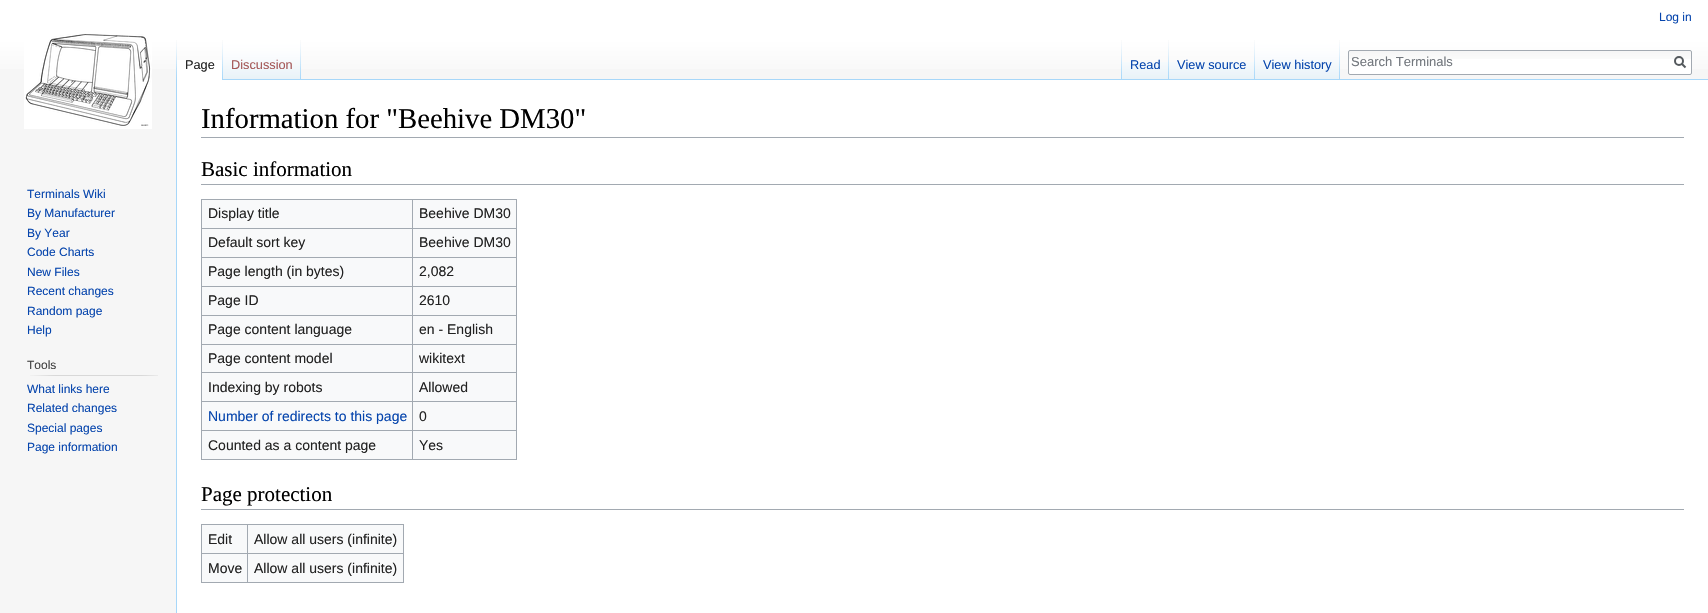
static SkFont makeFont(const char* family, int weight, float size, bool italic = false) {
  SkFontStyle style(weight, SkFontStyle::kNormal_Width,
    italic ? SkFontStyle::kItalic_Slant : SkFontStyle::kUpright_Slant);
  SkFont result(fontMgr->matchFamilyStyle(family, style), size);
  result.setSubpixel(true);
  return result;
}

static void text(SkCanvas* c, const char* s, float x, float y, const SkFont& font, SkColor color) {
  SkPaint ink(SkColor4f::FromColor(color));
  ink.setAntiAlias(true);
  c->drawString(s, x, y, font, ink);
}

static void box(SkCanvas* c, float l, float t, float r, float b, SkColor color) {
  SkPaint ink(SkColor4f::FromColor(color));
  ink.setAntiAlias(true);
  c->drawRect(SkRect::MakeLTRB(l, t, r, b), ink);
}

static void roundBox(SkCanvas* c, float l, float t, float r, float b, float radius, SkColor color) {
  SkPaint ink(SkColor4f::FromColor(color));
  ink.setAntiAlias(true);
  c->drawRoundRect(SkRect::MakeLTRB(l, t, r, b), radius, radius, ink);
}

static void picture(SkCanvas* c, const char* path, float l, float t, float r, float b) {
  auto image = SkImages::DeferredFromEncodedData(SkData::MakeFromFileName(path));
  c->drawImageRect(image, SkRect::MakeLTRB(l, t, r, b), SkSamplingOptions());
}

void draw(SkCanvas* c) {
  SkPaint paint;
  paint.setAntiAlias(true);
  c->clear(0xfff6f6f6);
  {
    const SkColor colors[] = {0xffffffff, 0xfff6f6f6};
    const float stops[] = {0.5f, 1};
    const SkPoint ends[] = {{854, 0}, {854, 80}};
    paint.setShader(SkGradientShader::MakeLinear(ends, colors, stops, 2, SkTileMode::kClamp));
    paint.setAlpha(255);
  }
  c->drawRect(SkRect::MakeLTRB(0, 0, 1708, 69), paint);
  SkFont face1 = makeFont("Liberation Sans", 400, 12);
  text(c, "Log in", 1659, 21, face1, 0xff0645ad);
  picture(c, "img_01.png", 176, 40, 177, 79);
  box(c, 177, 60, 222, 80, 0xffffffff);
  picture(c, "img_02.png", 222, 40, 223, 80);
  SkFont face2 = makeFont("Liberation Sans", 400, 12.75f);
  text(c, "Page", 185, 69, face2, 0xff222222);
  picture(c, "img_03.png", 223, 40, 300, 79);
  picture(c, "img_01.png", 300, 40, 301, 79);
  text(c, "Discussion", 231, 69, face2, 0xffa55858);
  picture(c, "img_01.png", 1121, 40, 1122, 79);
  picture(c, "img_04.png", 1122, 62, 1168, 79);
  picture(c, "img_01.png", 1168, 40, 1169, 79);
  text(c, "Read", 1130, 69, face2, 0xff0645ad);
  picture(c, "img_05.png", 1169, 62, 1254, 79);
  picture(c, "img_01.png", 1254, 40, 1255, 79);
  text(c, "View source", 1177, 69, face2, 0xff0645ad);
  picture(c, "img_06.png", 1255, 40, 1339, 79);
  picture(c, "img_01.png", 1339, 40, 1340, 79);
  text(c, "View history", 1263, 69, face2, 0xff0645ad);
  roundBox(c, 1348, 50, 1692, 75, 2, 0xffffffff);
  picture(c, "img_07.png", 1348, 51, 1692, 59);
  paint.setStyle(SkPaint::kStroke_Style);
  paint.setStrokeWidth(1);
  paint.setShader(nullptr);
  paint.setColor(0xffa2a9b1);
  c->drawRoundRect(SkRect::MakeLTRB(1348.5f, 50.5f, 1691.5f, 74.5f), 1.5f, 1.5f, paint);
  SkFont face3 = makeFont("Liberation Sans", 400, 13);
  text(c, "Search Terminals", 1351, 66, face3, 0xff72777d);
  paint.setStrokeWidth(2);
  paint.setColor(0xff54595d);
  c->drawPath(SkPathBuilder().moveTo(1685.5f, 67.5f).lineTo(1681.5f, 63.5f).detach(), paint);
  c->drawCircle(1679, 61, 4, paint);
  picture(c, "img_08.png", 24, 34, 152, 129);
  text(c, "Terminals Wiki", 27, 198, face1, 0xff0645ad);
  text(c, "By Manufacturer", 27, 217, face1, 0xff0645ad);
  text(c, "By Year", 27, 237, face1, 0xff0645ad);
  text(c, "Code Charts", 27, 256, face1, 0xff0645ad);
  text(c, "New Files", 27, 276, face1, 0xff0645ad);
  text(c, "Recent changes", 27, 295, face1, 0xff0645ad);
  text(c, "Random page", 27, 315, face1, 0xff0645ad);
  text(c, "Help", 27, 334, face1, 0xff0645ad);
  text(c, "Tools", 27, 369, face1, 0xff444444);
  picture(c, "img_09.png", 30, 375, 158, 376);
  text(c, "What links here", 27, 393, face1, 0xff0645ad);
  text(c, "Related changes", 27, 412, face1, 0xff0645ad);
  text(c, "Special pages", 27, 432, face1, 0xff0645ad);
  text(c, "Page information", 27, 451, face1, 0xff0645ad);
  box(c, 177, 80, 1708, 613, 0xffffffff);
  box(c, 223, 79, 1708, 80, 0xffa7d7f9);
  box(c, 176, 79, 177, 613, 0xffa7d7f9);
  box(c, 201, 137, 1684, 138, 0xffa2a9b1);
  SkFont face4 = makeFont("Liberation Serif", 400, 28.75f);
  text(c, "Information for \"Beehive DM30\"", 201, 128, face4, 0xff000000);
  box(c, 201, 184, 1684, 185, 0xffa2a9b1);
  SkFont face5 = makeFont("Liberation Serif", 400, 21);
  text(c, "Basic information", 201, 176, face5, 0xff000000);
  box(c, 202, 200, 516, 459, 0xfff8f9fa);
  box(c, 201, 199, 517, 200, 0xffa2a9b1);
  box(c, 516, 199, 517, 460, 0xffa2a9b1);
  box(c, 201, 459, 517, 460, 0xffa2a9b1);
  box(c, 201, 199, 202, 460, 0xffa2a9b1);
  SkFont face6 = makeFont("Liberation Sans", 400, 14);
  text(c, "Display title", 208, 218, face6, 0xff222222);
  box(c, 412, 228, 517, 229, 0xffa2a9b1);
  box(c, 412, 257, 517, 258, 0xffa2a9b1);
  box(c, 412, 286, 517, 287, 0xffa2a9b1);
  box(c, 412, 315, 517, 316, 0xffa2a9b1);
  box(c, 412, 344, 517, 345, 0xffa2a9b1);
  box(c, 412, 372, 517, 373, 0xffa2a9b1);
  box(c, 412, 401, 517, 402, 0xffa2a9b1);
  box(c, 412, 430, 517, 431, 0xffa2a9b1);
  box(c, 412, 430, 413, 460, 0xffa2a9b1);
  box(c, 201, 430, 413, 431, 0xffa2a9b1);
  box(c, 412, 401, 413, 431, 0xffa2a9b1);
  box(c, 201, 401, 413, 402, 0xffa2a9b1);
  box(c, 412, 372, 413, 402, 0xffa2a9b1);
  box(c, 201, 372, 413, 373, 0xffa2a9b1);
  box(c, 412, 344, 413, 373, 0xffa2a9b1);
  box(c, 201, 344, 413, 345, 0xffa2a9b1);
  box(c, 412, 315, 413, 345, 0xffa2a9b1);
  box(c, 201, 315, 413, 316, 0xffa2a9b1);
  box(c, 412, 286, 413, 316, 0xffa2a9b1);
  box(c, 201, 286, 413, 287, 0xffa2a9b1);
  box(c, 412, 257, 413, 287, 0xffa2a9b1);
  box(c, 201, 257, 413, 258, 0xffa2a9b1);
  box(c, 412, 228, 413, 258, 0xffa2a9b1);
  box(c, 201, 228, 413, 229, 0xffa2a9b1);
  box(c, 412, 199, 413, 229, 0xffa2a9b1);
  text(c, "Beehive DM30", 419, 218, face6, 0xff222222);
  text(c, "Default sort key", 208, 247, face6, 0xff222222);
  text(c, "Beehive DM30", 419, 247, face6, 0xff222222);
  text(c, "Page length (in bytes)", 208, 276, face6, 0xff222222);
  text(c, "2,082", 419, 276, face6, 0xff222222);
  text(c, "Page ID", 208, 305, face6, 0xff222222);
  text(c, "2610", 419, 305, face6, 0xff222222);
  text(c, "Page content language", 208, 334, face6, 0xff222222);
  text(c, "en - English", 419, 334, face6, 0xff222222);
  text(c, "Page content model", 208, 363, face6, 0xff222222);
  text(c, "wikitext", 419, 363, face6, 0xff222222);
  text(c, "Indexing by robots", 208, 392, face6, 0xff222222);
  text(c, "Allowed", 419, 392, face6, 0xff222222);
  text(c, "Number of redirects to this page", 208, 421, face6, 0xff0645ad);
  text(c, "0", 419, 421, face6, 0xff222222);
  text(c, "Counted as a content page", 208, 450, face6, 0xff222222);
  text(c, "Yes", 419, 450, face6, 0xff222222);
  box(c, 201, 509, 1684, 510, 0xffa2a9b1);
  text(c, "Page protection", 201, 501, face5, 0xff000000);
  box(c, 202, 525, 403, 582, 0xfff8f9fa);
  box(c, 201, 524, 404, 525, 0xffa2a9b1);
  box(c, 403, 524, 404, 583, 0xffa2a9b1);
  box(c, 201, 582, 404, 583, 0xffa2a9b1);
  box(c, 201, 524, 202, 583, 0xffa2a9b1);
  text(c, "Edit", 208, 544, face6, 0xff222222);
  box(c, 247, 553, 404, 554, 0xffa2a9b1);
  box(c, 247, 553, 248, 583, 0xffa2a9b1);
  box(c, 201, 553, 248, 554, 0xffa2a9b1);
  box(c, 247, 524, 248, 554, 0xffa2a9b1);
  text(c, "Allow all users (infinite)", 254, 544, face6, 0xff222222);
  text(c, "Move", 208, 573, face6, 0xff222222);
  text(c, "Allow all users (infinite)", 254, 573, face6, 0xff222222);
}
